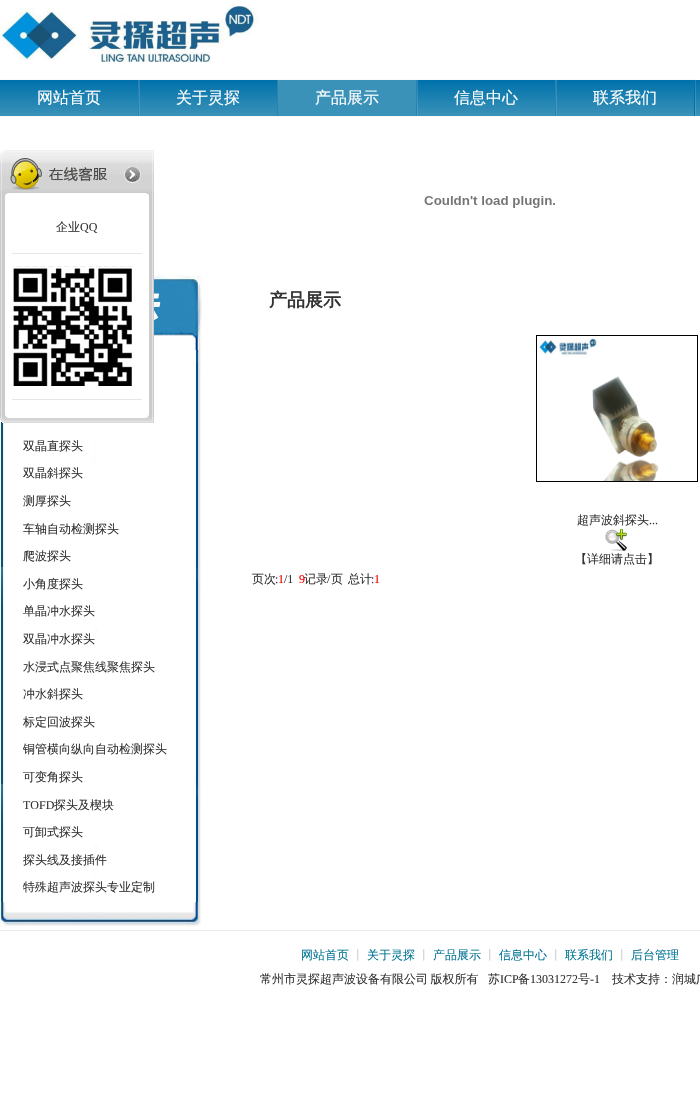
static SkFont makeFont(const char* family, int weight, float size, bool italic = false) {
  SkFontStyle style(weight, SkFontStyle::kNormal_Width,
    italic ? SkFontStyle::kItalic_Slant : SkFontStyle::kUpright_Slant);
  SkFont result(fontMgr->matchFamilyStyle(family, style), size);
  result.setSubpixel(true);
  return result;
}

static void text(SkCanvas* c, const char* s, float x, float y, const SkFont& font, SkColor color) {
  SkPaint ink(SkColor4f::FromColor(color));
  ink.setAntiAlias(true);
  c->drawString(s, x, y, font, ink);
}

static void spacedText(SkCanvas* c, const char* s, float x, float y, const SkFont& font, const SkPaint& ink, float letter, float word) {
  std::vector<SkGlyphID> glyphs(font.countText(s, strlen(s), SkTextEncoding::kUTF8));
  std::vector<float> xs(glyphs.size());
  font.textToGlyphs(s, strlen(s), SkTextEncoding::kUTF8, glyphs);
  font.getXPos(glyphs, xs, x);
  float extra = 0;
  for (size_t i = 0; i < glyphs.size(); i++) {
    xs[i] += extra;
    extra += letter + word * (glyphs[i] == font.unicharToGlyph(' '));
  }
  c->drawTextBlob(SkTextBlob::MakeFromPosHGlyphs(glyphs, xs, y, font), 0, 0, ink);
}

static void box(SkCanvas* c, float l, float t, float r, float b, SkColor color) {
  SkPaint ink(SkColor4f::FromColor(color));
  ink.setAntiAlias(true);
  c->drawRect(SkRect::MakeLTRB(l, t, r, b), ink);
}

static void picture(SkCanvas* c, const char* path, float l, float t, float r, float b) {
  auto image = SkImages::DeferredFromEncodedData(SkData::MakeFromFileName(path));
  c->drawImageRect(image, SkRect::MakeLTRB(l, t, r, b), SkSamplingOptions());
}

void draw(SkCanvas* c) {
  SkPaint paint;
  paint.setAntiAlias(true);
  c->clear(0xffffffff);
  picture(c, "img_01.png", 0, 6, 259, 62);
  {
    const SkColor colors[] = {0xff0071ab, 0xff3a92b8};
    const float stops[] = {0, 1};
    const SkPoint ends[] = {{350, 80}, {350, 116}};
    paint.setShader(SkGradientShader::MakeLinear(ends, colors, stops, 2, SkTileMode::kClamp));
    paint.setAlpha(255);
  }
  c->drawRect(SkRect::MakeLTRB(0, 80, 700, 116), paint);
  c->save();
  c->clipPath(SkPathBuilder(SkPathFillType::kEvenOdd).moveTo(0, 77).lineTo(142, 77).lineTo(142, 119).lineTo(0, 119).close().moveTo(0, 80).lineTo(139, 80).lineTo(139, 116).lineTo(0, 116).close().detach(), true);
  paint.setShader(nullptr);
  paint.setColor(0xffdddddd);
  paint.setMaskFilter(SkMaskFilter::MakeBlur(kNormal_SkBlurStyle, 0.5f));
  c->drawRect(SkRect::MakeLTRB(0, 80, 139, 116), paint);
  paint.setMaskFilter(nullptr);
  c->restore();
  box(c, 138, 80, 139, 116, 0xff0071ab);
  SkFont face1 = makeFont("WenQuanYi Zen Hei", 500, 16);
  text(c, "网站首页", 37, 103, face1, 0xffffffff);
  c->save();
  c->clipPath(SkPathBuilder(SkPathFillType::kEvenOdd).moveTo(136, 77).lineTo(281, 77).lineTo(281, 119).lineTo(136, 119).close().moveTo(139, 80).lineTo(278, 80).lineTo(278, 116).lineTo(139, 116).close().detach(), true);
  paint.setMaskFilter(SkMaskFilter::MakeBlur(kNormal_SkBlurStyle, 0.5f));
  c->drawRect(SkRect::MakeLTRB(139, 80, 278, 116), paint);
  paint.setMaskFilter(nullptr);
  c->restore();
  box(c, 277, 80, 278, 116, 0xff0071ab);
  text(c, "关于灵探", 176, 103, face1, 0xffffffff);
  paint.setMaskFilter(SkMaskFilter::MakeBlur(kNormal_SkBlurStyle, 0.5f));
  c->drawRect(SkRect::MakeLTRB(278, 80, 417, 116), paint);
  paint.setMaskFilter(nullptr);
  box(c, 278, 80, 416, 116, 0xff3a92b8);
  box(c, 416, 80, 417, 116, 0xff0071ab);
  text(c, "产品展示", 315, 103, face1, 0xffffffff);
  c->save();
  c->clipPath(SkPathBuilder(SkPathFillType::kEvenOdd).moveTo(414, 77).lineTo(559, 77).lineTo(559, 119).lineTo(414, 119).close().moveTo(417, 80).lineTo(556, 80).lineTo(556, 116).lineTo(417, 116).close().detach(), true);
  paint.setMaskFilter(SkMaskFilter::MakeBlur(kNormal_SkBlurStyle, 0.5f));
  c->drawRect(SkRect::MakeLTRB(417, 80, 556, 116), paint);
  paint.setMaskFilter(nullptr);
  c->restore();
  box(c, 555, 80, 556, 116, 0xff0071ab);
  text(c, "信息中心", 454, 103, face1, 0xffffffff);
  c->save();
  c->clipPath(SkPathBuilder(SkPathFillType::kEvenOdd).moveTo(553, 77).lineTo(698, 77).lineTo(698, 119).lineTo(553, 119).close().moveTo(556, 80).lineTo(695, 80).lineTo(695, 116).lineTo(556, 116).close().detach(), true);
  paint.setMaskFilter(SkMaskFilter::MakeBlur(kNormal_SkBlurStyle, 0.5f));
  c->drawRect(SkRect::MakeLTRB(556, 80, 695, 116), paint);
  paint.setMaskFilter(nullptr);
  c->restore();
  box(c, 694, 80, 695, 116, 0xff0071ab);
  text(c, "联系我们", 593, 103, face1, 0xffffffff);
  picture(c, "img_02.png", 0, 150, 154, 196);
  picture(c, "img_03.png", 124, 167, 141, 183);
  picture(c, "img_09.png", 0, 350, 202, 902);
  picture(c, "img_04.png", 0, 196, 154, 415);
  SkFont face2 = makeFont("WenQuanYi Zen Hei", 500, 12);
  text(c, "企业", 56, 231, face2, 0xff333333);
  SkFont face3 = makeFont("Liberation Serif", 400, 12);
  text(c, "QQ", 80, 231, face3, 0xff333333);
  box(c, 12, 253, 142, 254, 0xffe6e6e6);
  picture(c, "img_05.png", 12, 266, 132, 386);
  box(c, 12, 399, 142, 400, 0xffe6e6e6);
  picture(c, "img_06.png", 0, 415, 154, 423);
  picture(c, "img_07.png", 424, 196, 555, 208);
  picture(c, "img_08.png", 154, 275, 202, 350);
  text(c, "双晶直探头", 23, 450, face2, 0xff333333);
  text(c, "双晶斜探头", 23, 477, face2, 0xff333333);
  text(c, "测厚探头", 23, 505, face2, 0xff333333);
  text(c, "车轴自动检测探头", 23, 533, face2, 0xff333333);
  text(c, "爬波探头", 23, 560, face2, 0xff333333);
  text(c, "小角度探头", 23, 588, face2, 0xff333333);
  text(c, "单晶冲水探头", 23, 615, face2, 0xff333333);
  text(c, "双晶冲水探头", 23, 643, face2, 0xff333333);
  text(c, "水浸式点聚焦线聚焦探头", 23, 671, face2, 0xff333333);
  text(c, "冲水斜探头", 23, 698, face2, 0xff333333);
  text(c, "标定回波探头", 23, 726, face2, 0xff333333);
  text(c, "铜管横向纵向自动检测探头", 23, 753, face2, 0xff333333);
  text(c, "可变角探头", 23, 781, face2, 0xff333333);
  text(c, "TOFD", 23, 809, face3, 0xff333333);
  text(c, "探头及楔块", 54, 809, face2, 0xff333333);
  text(c, "可卸式探头", 23, 836, face2, 0xff333333);
  text(c, "探头线及接插件", 23, 864, face2, 0xff333333);
  text(c, "特殊超声波探头专业定制", 23, 891, face2, 0xff333333);
  picture(c, "img_10.png", 0, 902, 202, 927);
  SkFont face4 = makeFont("WenQuanYi Zen Hei", 700, 18);
  text(c, "产品展示", 269, 306, face4, 0xff333333);
  paint.setStyle(SkPaint::kStroke_Style);
  paint.setStrokeWidth(1);
  paint.setColor(0xff000000);
  c->drawRect(SkRect::MakeLTRB(536.5f, 335.5f, 697.5f, 481.5f), paint);
  picture(c, "img_11.png", 537, 336, 659, 481);
  text(c, "超声波斜探头", 577, 524, face2, 0xff333333);
  text(c, "...", 649, 524, face3, 0xff333333);
  picture(c, "img_12.png", 605, 529, 627, 551);
  text(c, "【详细请点击】", 575, 563, face2, 0xff333333);
  text(c, "页次", 252, 583, face2, 0xff333333);
  text(c, ":", 275, 583, face3, 0xff333333);
  text(c, "1", 278, 583, face3, 0xffff0000);
  text(c, "/1", 284, 583, face3, 0xff333333);
  text(c, "9", 299, 583, face3, 0xffff0000);
  text(c, "记录", 304, 583, face2, 0xff333333);
  text(c, "/", 327, 583, face3, 0xff333333);
  text(c, "页", 331, 583, face2, 0xff333333);
  text(c, "总计", 348, 583, face2, 0xff333333);
  text(c, ":", 371, 583, face3, 0xff333333);
  text(c, "1", 374, 583, face3, 0xffff0000);
  box(c, 0, 930, 700, 931, 0xffe9e9e9);
  text(c, "网站首页", 301, 959, face2, 0xff047595);
  text(c, "丨", 352, 959, face2, 0xffd0cfcf);
  text(c, "关于灵探", 367, 959, face2, 0xff047595);
  text(c, "丨", 418, 959, face2, 0xffd0cfcf);
  text(c, "产品展示", 433, 959, face2, 0xff047595);
  text(c, "丨", 484, 959, face2, 0xffd0cfcf);
  text(c, "信息中心", 499, 959, face2, 0xff047595);
  text(c, "丨", 550, 959, face2, 0xffd0cfcf);
  text(c, "联系我们", 565, 959, face2, 0xff047595);
  text(c, "丨", 616, 959, face2, 0xffd0cfcf);
  text(c, "后台管理", 631, 959, face2, 0xff047595);
  paint.setStyle(SkPaint::kFill_Style);
  paint.setColor(0xff333333);
  spacedText(c, "常州市灵探超声波设备有限公司 版权所有", 260, 983, face2, paint, 0, -1);
  text(c, "苏", 488, 983, face2, 0xff333333);
  text(c, "ICP", 500, 983, face3, 0xff333333);
  text(c, "备", 518, 983, face2, 0xff333333);
  text(c, "13031272", 530, 983, face3, 0xff333333);
  text(c, "号", 578, 983, face2, 0xff333333);
  text(c, "-1", 590, 983, face3, 0xff333333);
  text(c, "技术支持：润城广", 612, 983, face2, 0xff333333);
}
